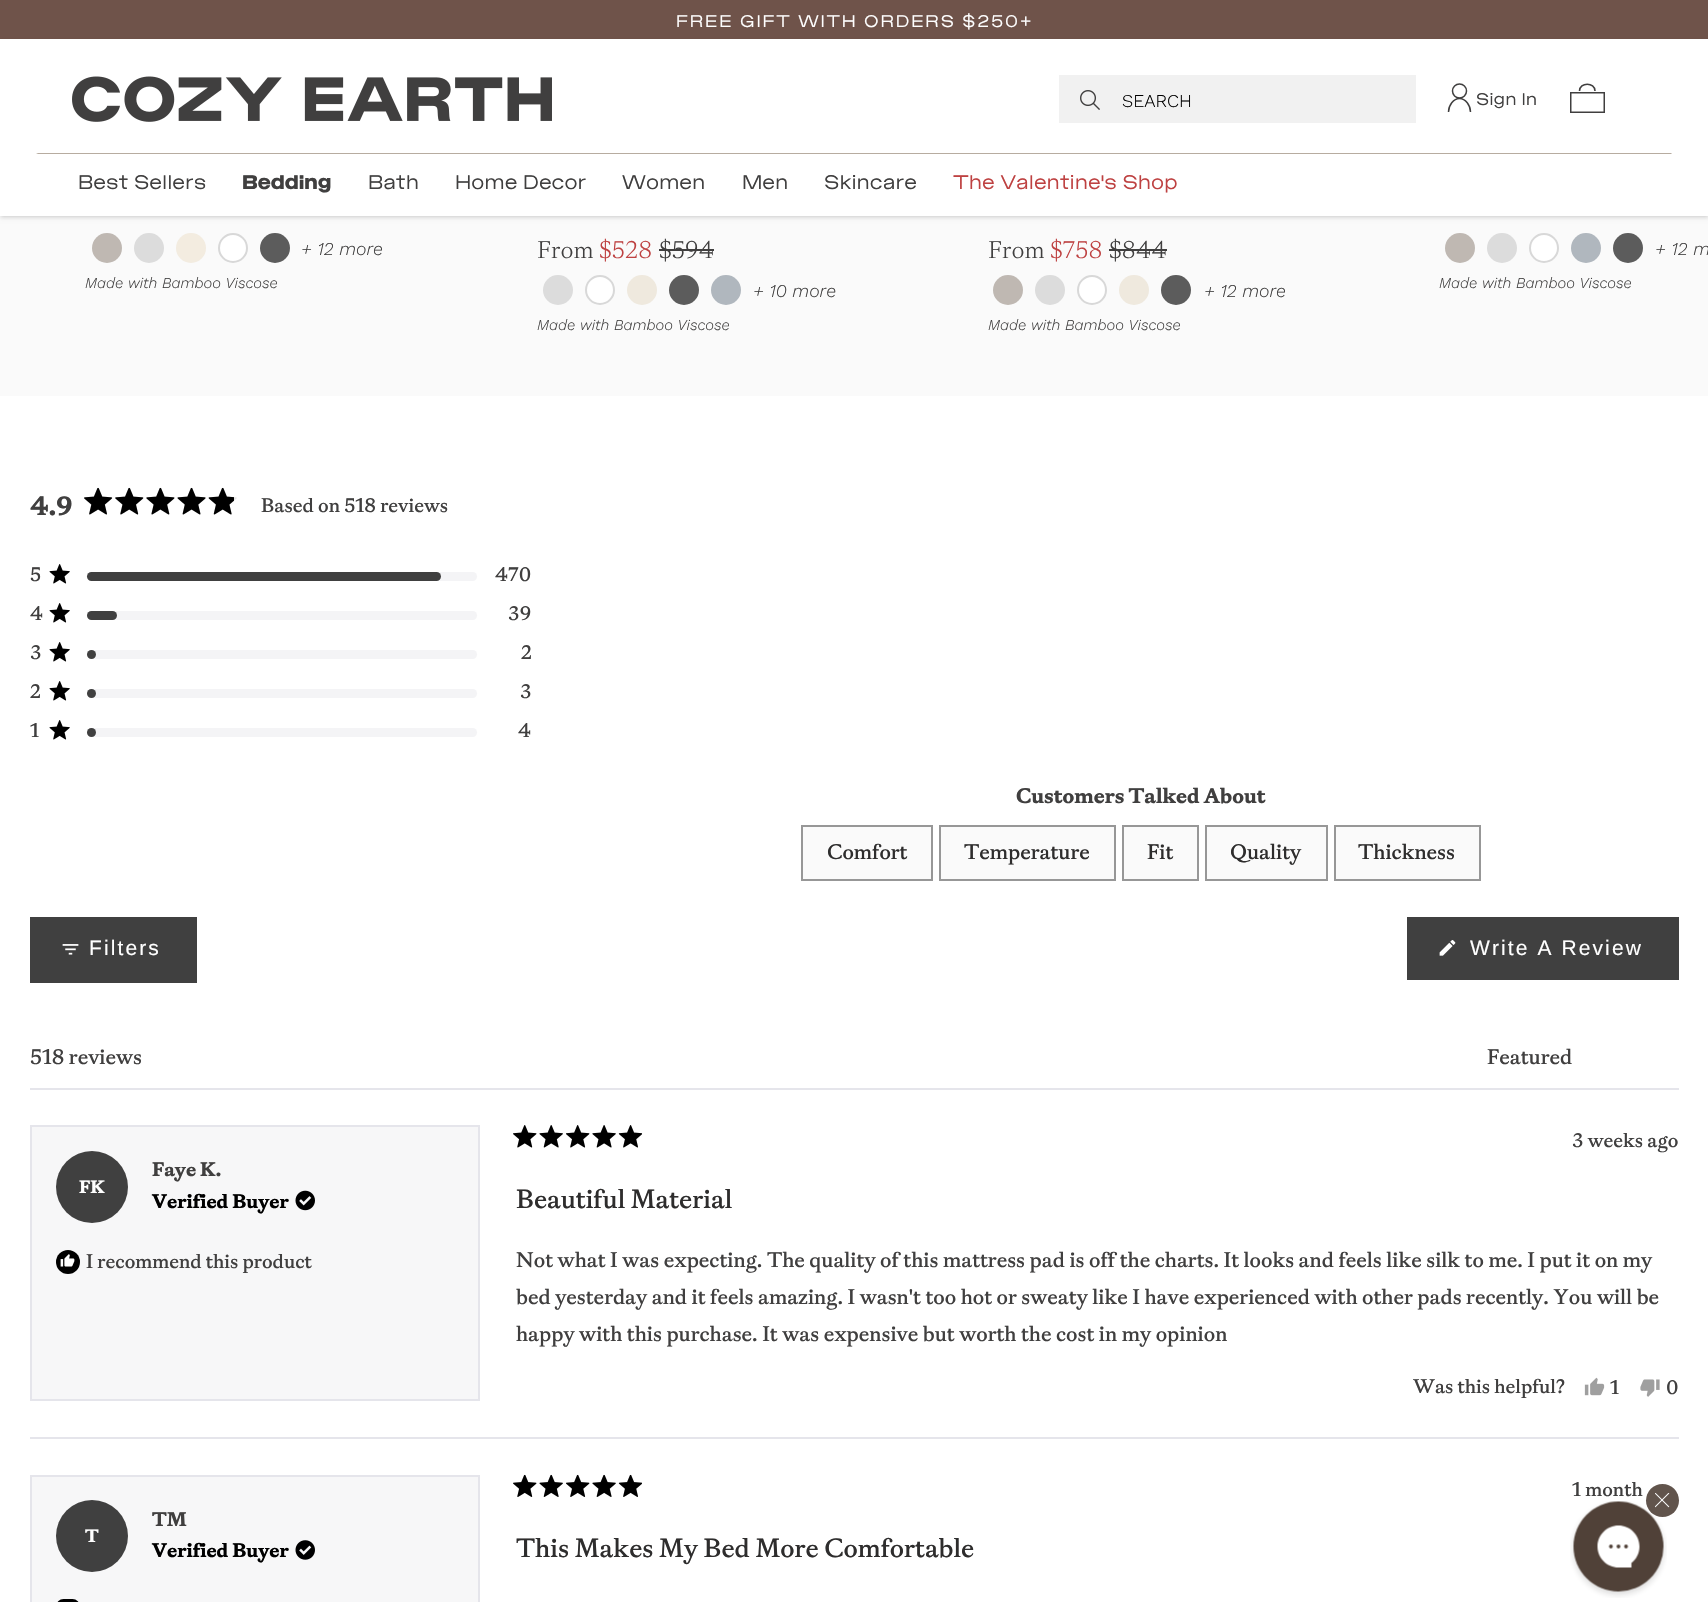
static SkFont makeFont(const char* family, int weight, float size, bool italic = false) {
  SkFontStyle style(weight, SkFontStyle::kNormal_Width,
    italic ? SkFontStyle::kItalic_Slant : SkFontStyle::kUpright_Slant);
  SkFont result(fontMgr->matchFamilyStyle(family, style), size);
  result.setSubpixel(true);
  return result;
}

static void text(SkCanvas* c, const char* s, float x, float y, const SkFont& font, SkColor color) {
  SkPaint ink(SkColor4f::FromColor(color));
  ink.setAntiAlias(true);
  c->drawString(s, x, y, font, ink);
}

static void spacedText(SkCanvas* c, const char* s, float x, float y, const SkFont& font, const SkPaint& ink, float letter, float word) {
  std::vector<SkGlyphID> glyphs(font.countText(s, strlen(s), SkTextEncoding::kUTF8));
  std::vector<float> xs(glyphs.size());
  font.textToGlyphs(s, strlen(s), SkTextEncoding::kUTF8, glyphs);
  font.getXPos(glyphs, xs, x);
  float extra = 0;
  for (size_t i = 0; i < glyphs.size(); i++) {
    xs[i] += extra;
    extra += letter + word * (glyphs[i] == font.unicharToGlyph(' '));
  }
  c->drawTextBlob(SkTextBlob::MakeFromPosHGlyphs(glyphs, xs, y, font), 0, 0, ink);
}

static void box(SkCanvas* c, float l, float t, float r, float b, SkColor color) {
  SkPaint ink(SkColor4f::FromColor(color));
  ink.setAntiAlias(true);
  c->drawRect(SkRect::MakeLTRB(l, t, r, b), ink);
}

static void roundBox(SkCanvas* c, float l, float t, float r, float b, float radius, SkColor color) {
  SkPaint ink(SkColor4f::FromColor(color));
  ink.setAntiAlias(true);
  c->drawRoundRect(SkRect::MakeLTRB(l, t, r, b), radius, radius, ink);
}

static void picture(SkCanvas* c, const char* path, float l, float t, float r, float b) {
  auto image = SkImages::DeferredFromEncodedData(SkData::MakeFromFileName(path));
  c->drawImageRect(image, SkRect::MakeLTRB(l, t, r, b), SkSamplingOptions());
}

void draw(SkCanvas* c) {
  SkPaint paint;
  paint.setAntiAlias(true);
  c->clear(0xffffffff);
  box(c, 0, 0, 1708, 39, 0xff6f534a);
  SkFont face1 = makeFont("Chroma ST", 300, 18);
  paint.setColor(0xffffffff);
  spacedText(c, "FREE GIFT WITH ORDERS $250+", 676, 27, face1, paint, 1.8f, 0);
  box(c, 0, 216, 1708, 396, 0xfffafafa);
  paint.setColor(0x1a000000);
  paint.setMaskFilter(SkMaskFilter::MakeBlur(kNormal_SkBlurStyle, 1.5f));
  c->drawRect(SkRect::MakeLTRB(2, 42, 1707, 216), paint);
  paint.setMaskFilter(nullptr);
  paint.setMaskFilter(SkMaskFilter::MakeBlur(kNormal_SkBlurStyle, 2));
  c->drawRect(SkRect::MakeLTRB(0, 41, 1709, 218), paint);
  paint.setMaskFilter(nullptr);
  box(c, 0, 39, 1708, 216, 0xffffffff);
  picture(c, "img_01.png", 72, 76, 552, 122);
  box(c, 1059, 75, 1416, 123, 0xfff1f1f1);
  picture(c, "img_02.png", 1080, 90, 1100, 110);
  SkFont face2 = makeFont("Work Sans", 300, 18);
  text(c, "SEARCH", 1122, 107, face2, 0xff000000);
  paint.setStyle(SkPaint::kStroke_Style);
  paint.setStrokeWidth(1.5f);
  paint.setColor(0xff403f3f);
  c->drawCircle(1459.5f, 91, 7, paint);
  c->drawPath(SkPathBuilder().moveTo(1470.5f, 112).cubicTo(1470.5f, 105.5f, 1465.5f, 98.5f, 1459.5f, 98.5f).cubicTo(1453.5f, 98.5f, 1448.5f, 105.5f, 1448.5f, 112).detach(), paint);
  text(c, "Sign In", 1476, 105, face1, 0xff403f3f);
  c->drawRect(SkRect::MakeLTRB(1570.75f, 92.75f, 1604.25f, 112.25f), paint);
  paint.setStrokeWidth(1.6f);
  c->drawPath(SkPathBuilder().moveTo(1595, 91).cubicTo(1595, 82, 1579.5f, 82, 1579.5f, 91).detach(), paint);
  paint.setStyle(SkPaint::kFill_Style);
  paint.setColor(0xffb7aca0);
  c->drawPath(SkPathBuilder().moveTo(36, 153).lineTo(1672, 153).lineTo(1671, 154).lineTo(38, 154).close().detach(), paint);
  SkFont face3 = makeFont("Chroma ST", 300, 21);
  text(c, "Best Sellers", 78, 189, face3, 0xff403f3f);
  SkFont face4 = makeFont("Chroma ST", 700, 21);
  text(c, "Bedding", 242, 189, face4, 0xff403f3f);
  text(c, "Bath", 368, 189, face3, 0xff403f3f);
  text(c, "Home Decor", 455, 189, face3, 0xff403f3f);
  text(c, "Women", 622, 189, face3, 0xff403f3f);
  text(c, "Men", 742, 189, face3, 0xff403f3f);
  text(c, "Skincare", 824, 189, face3, 0xff403f3f);
  text(c, "The Valentine's Shop", 953, 189, face3, 0xffbe4141);
  paint.setColor(0xffbfb8b2);
  c->drawCircle(107, 248, 15, paint);
  paint.setColor(0xffdcdcdc);
  c->drawCircle(149, 248, 15, paint);
  paint.setColor(0xfff3ece0);
  c->drawCircle(191, 248, 15, paint);
  paint.setColor(0xffffffff);
  c->drawCircle(233, 248, 14, paint);
  paint.setStyle(SkPaint::kStroke_Style);
  paint.setStrokeWidth(2);
  paint.setColor(0xffd8d8d8);
  c->drawCircle(233, 248, 14, paint);
  paint.setStyle(SkPaint::kFill_Style);
  paint.setColor(0xff5c5c5c);
  c->drawCircle(275, 248, 15, paint);
  SkFont face5 = makeFont("Work Sans", 300, 18, true);
  text(c, "+ 12 more", 301, 255, face5, 0xff403f3f);
  SkFont face6 = makeFont("Work Sans", 300, 15, true);
  text(c, "Made with Bamboo Viscose", 85, 288, face6, 0xff403f3f);
  SkFont face7 = makeFont("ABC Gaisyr", 300, 24);
  text(c, "From", 537, 258, face7, 0xff403f3f);
  text(c, "$528", 599, 258, face7, 0xffbe4141);
  text(c, "$594", 659, 258, face7, 0xff403f3f);
  box(c, 659, 249, 714, 251, 0xff403f3f);
  paint.setColor(0xffdcdcdc);
  c->drawCircle(558, 290, 15, paint);
  paint.setColor(0xffffffff);
  c->drawCircle(600, 290, 14, paint);
  paint.setStyle(SkPaint::kStroke_Style);
  paint.setColor(0xffd8d8d8);
  c->drawCircle(600, 290, 14, paint);
  paint.setStyle(SkPaint::kFill_Style);
  paint.setColor(0xffefe9de);
  c->drawCircle(642, 290, 15, paint);
  paint.setColor(0xff5c5c5c);
  c->drawCircle(684, 290, 15, paint);
  paint.setColor(0xffb0b7be);
  c->drawCircle(726, 290, 15, paint);
  text(c, "+ 10 more", 753, 297, face5, 0xff403f3f);
  text(c, "Made with Bamboo Viscose", 537, 330, face6, 0xff403f3f);
  text(c, "From", 988, 258, face7, 0xff403f3f);
  text(c, "$758", 1050, 258, face7, 0xffbe4141);
  text(c, "$844", 1109, 258, face7, 0xff403f3f);
  box(c, 1109, 249, 1167, 251, 0xff403f3f);
  paint.setColor(0xffbfb8b2);
  c->drawCircle(1008, 290, 15, paint);
  paint.setColor(0xffdcdcdc);
  c->drawCircle(1050, 290, 15, paint);
  paint.setColor(0xffffffff);
  c->drawCircle(1092, 290, 14, paint);
  paint.setStyle(SkPaint::kStroke_Style);
  paint.setColor(0xffd8d8d8);
  c->drawCircle(1092, 290, 14, paint);
  paint.setStyle(SkPaint::kFill_Style);
  paint.setColor(0xffefe9de);
  c->drawCircle(1134, 290, 15, paint);
  paint.setColor(0xff5c5c5c);
  c->drawCircle(1176, 290, 15, paint);
  text(c, "+ 12 more", 1204, 297, face5, 0xff403f3f);
  text(c, "Made with Bamboo Viscose", 988, 330, face6, 0xff403f3f);
  paint.setColor(0xffbfb8b2);
  c->drawCircle(1460, 248, 15, paint);
  paint.setColor(0xffdcdcdc);
  c->drawCircle(1502, 248, 15, paint);
  paint.setColor(0xffffffff);
  c->drawCircle(1544, 248, 14, paint);
  paint.setStyle(SkPaint::kStroke_Style);
  paint.setColor(0xffd8d8d8);
  c->drawCircle(1544, 248, 14, paint);
  paint.setStyle(SkPaint::kFill_Style);
  paint.setColor(0xffb0b7be);
  c->drawCircle(1586, 248, 15, paint);
  paint.setColor(0xff5c5c5c);
  c->drawCircle(1628, 248, 15, paint);
  text(c, "+ 12 m", 1655, 255, face5, 0xff403f3f);
  text(c, "Made with Bamboo Viscose", 1439, 288, face6, 0xff403f3f);
  SkFont face8 = makeFont("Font", 700, 26.25f);
  text(c, "4.9", 30, 515, face8, 0xff403f3f);
  picture(c, "img_03.png", 84, 487, 237, 515);
  picture(c, "img_04.png", 84, 488, 234, 515);
  SkFont face9 = makeFont("Font", 400, 19.5f);
  text(c, "Based on 518 reviews", 261, 512, face9, 0xff403f3f);
  text(c, "5", 30, 581, face9, 0xff403f3f);
  picture(c, "img_05.png", 49, 564, 70, 584);
  roundBox(c, 87, 572, 477, 581, 4.5f, 0xfff4f4f6);
  roundBox(c, 87, 572, 441, 581, 4.5f, 0xff404040);
  text(c, "470", 495, 581, face9, 0xff403f3f);
  text(c, "4", 30, 620, face9, 0xff403f3f);
  picture(c, "img_05.png", 49, 603, 70, 623);
  roundBox(c, 87, 611, 477, 620, 4.5f, 0xfff4f4f6);
  roundBox(c, 87, 611, 117, 620, 4.5f, 0xff404040);
  text(c, "39", 508, 620, face9, 0xff403f3f);
  text(c, "3", 30, 659, face9, 0xff403f3f);
  picture(c, "img_05.png", 49, 642, 70, 662);
  roundBox(c, 87, 650, 477, 659, 4.5f, 0xfff4f4f6);
  paint.setColor(0xff404040);
  c->drawCircle(91.5f, 654.5f, 4.5f, paint);
  text(c, "2", 521, 659, face9, 0xff403f3f);
  text(c, "2", 30, 698, face9, 0xff403f3f);
  picture(c, "img_05.png", 49, 681, 70, 701);
  roundBox(c, 87, 689, 477, 698, 4.5f, 0xfff4f4f6);
  c->drawCircle(91.5f, 693.5f, 4.5f, paint);
  text(c, "3", 520, 698, face9, 0xff403f3f);
  text(c, "1", 30, 737, face9, 0xff403f3f);
  picture(c, "img_05.png", 49, 720, 70, 740);
  roundBox(c, 87, 728, 477, 737, 4.5f, 0xfff4f4f6);
  c->drawCircle(91.5f, 732.5f, 4.5f, paint);
  text(c, "4", 518, 737, face9, 0xff403f3f);
  SkFont face10 = makeFont("Font", 700, 21);
  text(c, "Customers Talked About", 1016, 803, face10, 0xff403f3f);
  paint.setColor(0xfffafafa);
  c->drawRect(SkRect::MakeLTRB(802, 826, 932, 880), paint);
  paint.setStyle(SkPaint::kStroke_Style);
  paint.setColor(0xff979797);
  c->drawRect(SkRect::MakeLTRB(802, 826, 932, 880), paint);
  SkFont face11 = makeFont("Font", 400, 21);
  text(c, "Comfort", 827, 859, face11, 0xff2e2d2d);
  paint.setStyle(SkPaint::kFill_Style);
  paint.setColor(0xfffafafa);
  c->drawRect(SkRect::MakeLTRB(940, 826, 1115, 880), paint);
  paint.setStyle(SkPaint::kStroke_Style);
  paint.setColor(0xff979797);
  c->drawRect(SkRect::MakeLTRB(940, 826, 1115, 880), paint);
  text(c, "Temperature", 964, 859, face11, 0xff2e2d2d);
  paint.setStyle(SkPaint::kFill_Style);
  paint.setColor(0xfffafafa);
  c->drawRect(SkRect::MakeLTRB(1123, 826, 1198, 880), paint);
  paint.setStyle(SkPaint::kStroke_Style);
  paint.setColor(0xff979797);
  c->drawRect(SkRect::MakeLTRB(1123, 826, 1198, 880), paint);
  text(c, "Fit", 1147, 859, face11, 0xff2e2d2d);
  paint.setStyle(SkPaint::kFill_Style);
  paint.setColor(0xfffafafa);
  c->drawRect(SkRect::MakeLTRB(1206, 826, 1327, 880), paint);
  paint.setStyle(SkPaint::kStroke_Style);
  paint.setColor(0xff979797);
  c->drawRect(SkRect::MakeLTRB(1206, 826, 1327, 880), paint);
  text(c, "Quality", 1230, 859, face11, 0xff2e2d2d);
  paint.setStyle(SkPaint::kFill_Style);
  paint.setColor(0xfffafafa);
  c->drawRect(SkRect::MakeLTRB(1335, 826, 1480, 880), paint);
  paint.setStyle(SkPaint::kStroke_Style);
  paint.setColor(0xff979797);
  c->drawRect(SkRect::MakeLTRB(1335, 826, 1480, 880), paint);
  text(c, "Thickness", 1358, 859, face11, 0xff2e2d2d);
  box(c, 30, 917, 197, 983, 0xff404040);
  picture(c, "img_06.png", 62, 944, 79, 955);
  SkFont face12 = makeFont("Liberation Sans", 400, 21);
  paint.setStyle(SkPaint::kFill_Style);
  paint.setColor(0xffffffff);
  spacedText(c, "Filters", 89, 955, face12, paint, 2.1f, 0);
  box(c, 1407, 917, 1679, 980, 0xff404040);
  picture(c, "img_07.png", 1439, 940, 1456, 956);
  spacedText(c, "Write A Review", 1470, 955, face12, paint, 2.1f, 0);
  text(c, "518 reviews", 30, 1064, face11, 0xff403f3f);
  text(c, "Featured", 1487, 1064, face11, 0xff403f3f);
  box(c, 30, 1088, 1679, 1090, 0xffe5e5eb);
  box(c, 30, 1437, 1679, 1439, 0xffe5e5eb);
  paint.setColor(0xfff7f7f8);
  c->drawRect(SkRect::MakeLTRB(31, 1126, 479, 1400), paint);
  paint.setStyle(SkPaint::kStroke_Style);
  paint.setColor(0xffe5e5eb);
  c->drawRect(SkRect::MakeLTRB(31, 1126, 479, 1400), paint);
  paint.setStyle(SkPaint::kFill_Style);
  paint.setColor(0xff404040);
  c->drawCircle(92, 1187, 36, paint);
  SkFont face13 = makeFont("Font", 700, 18);
  text(c, "FK", 79, 1193, face13, 0xffffffff);
  SkFont face14 = makeFont("Font", 700, 19.5f);
  text(c, "Faye K.", 152, 1176, face14, 0xff403f3f);
  text(c, "Verified Buyer", 152, 1208, face14, 0xff000000);
  picture(c, "img_08.png", 295, 1190, 315, 1211);
  paint.setColor(0xff000000);
  c->drawCircle(68, 1262, 12, paint);
  picture(c, "img_09.png", 60, 1254, 75, 1267);
  text(c, "I recommend this product", 86, 1268, face9, 0xff403f3f);
  picture(c, "img_10.png", 513, 1125, 643, 1148);
  picture(c, "img_11.png", 513, 1125, 642, 1148);
  text(c, "3 weeks ago", 1572, 1147, face9, 0xff403f3f);
  SkFont face15 = makeFont("Font", 400, 26.25f);
  text(c, "Beautiful Material", 516, 1208, face15, 0xff2e2d2d);
  text(c, "Not what I was expecting. The quality of this mattress pad is off the charts. It looks and feels like silk to me. I put it on my", 516, 1267, face11, 0xff403f3f);
  text(c, "bed yesterday and it feels amazing. I wasn't too hot or sweaty like I have experienced with other pads recently. You will be", 516, 1304, face11, 0xff403f3f);
  text(c, "happy with this purchase. It was expensive but worth the cost in my opinion", 516, 1341, face11, 0xff403f3f);
  text(c, "Was this helpful?", 1413, 1393, face9, 0xff403f3f);
  picture(c, "img_12.png", 1584, 1377, 1605, 1396);
  text(c, "1", 1610, 1394, face9, 0xff403f3f);
  picture(c, "img_13.png", 1640, 1379, 1660, 1397);
  text(c, "0", 1666, 1394, face9, 0xff403f3f);
  paint.setColor(0xfff7f7f8);
  c->drawRect(SkRect::MakeLTRB(31, 1476, 479, 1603), paint);
  paint.setStyle(SkPaint::kStroke_Style);
  paint.setColor(0xffe5e5eb);
  c->drawRect(SkRect::MakeLTRB(31, 1476, 479, 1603), paint);
  paint.setStyle(SkPaint::kFill_Style);
  paint.setColor(0xff404040);
  c->drawCircle(92, 1536, 36, paint);
  text(c, "T", 85, 1542, face13, 0xffffffff);
  text(c, "TM", 152, 1526, face14, 0xff403f3f);
  text(c, "Verified Buyer", 152, 1557, face14, 0xff000000);
  picture(c, "img_14.png", 295, 1540, 315, 1560);
  roundBox(c, 56, 1599, 80, 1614, 12, 0xff000000);
  picture(c, "img_15.png", 513, 1474, 642, 1497);
  picture(c, "img_16.png", 513, 1475, 642, 1497);
  text(c, "1 month", 1572, 1496, face9, 0xff403f3f);
  text(c, "This Makes My Bed More Comfortable", 516, 1557, face15, 0xff2e2d2d);
  picture(c, "img_18.png", 1570, 1501, 1667, 1598);
  paint.setColor(0xe6504138);
  c->drawCircle(1662.5f, 1500.5f, 16.5f, paint);
  picture(c, "img_17.png", 1655, 1493, 1670, 1508);
}
